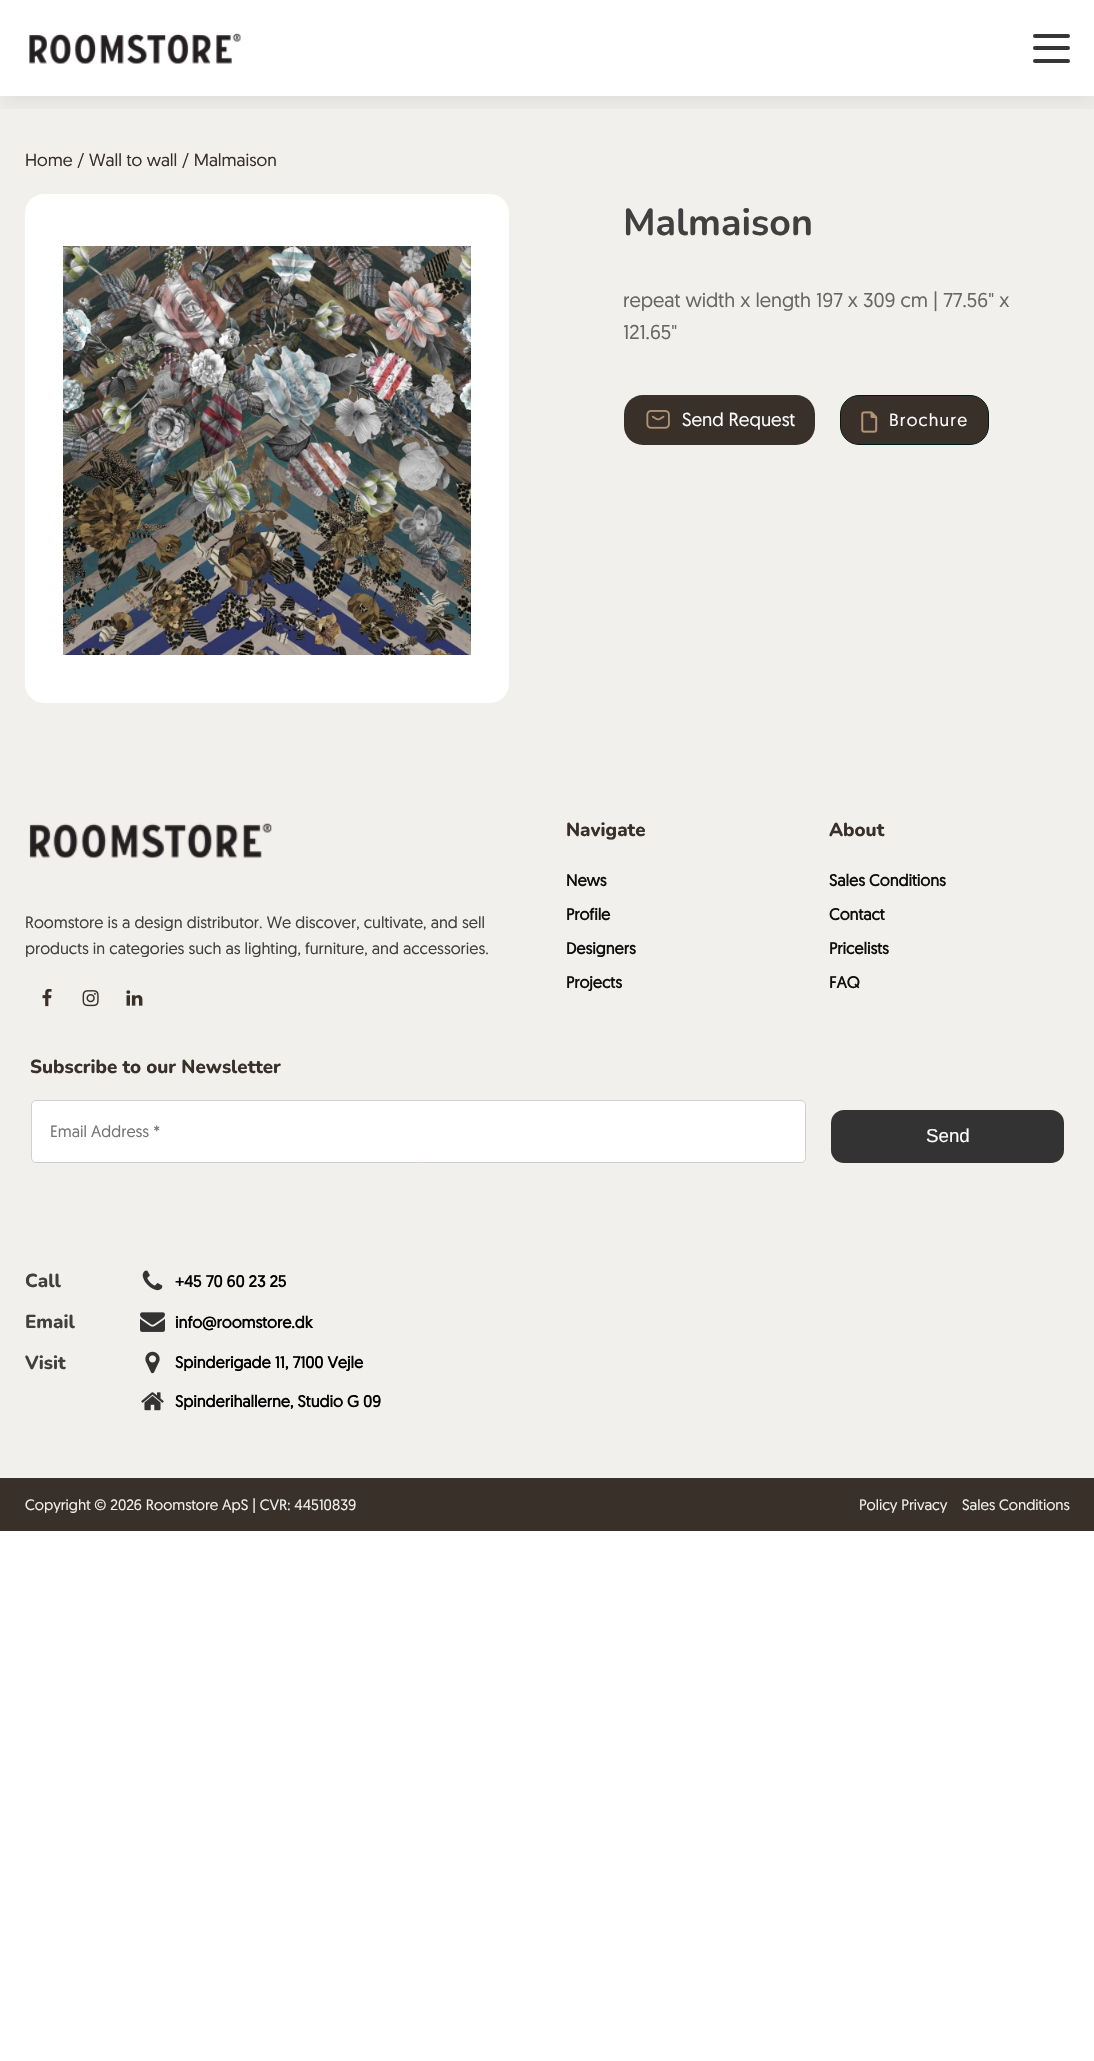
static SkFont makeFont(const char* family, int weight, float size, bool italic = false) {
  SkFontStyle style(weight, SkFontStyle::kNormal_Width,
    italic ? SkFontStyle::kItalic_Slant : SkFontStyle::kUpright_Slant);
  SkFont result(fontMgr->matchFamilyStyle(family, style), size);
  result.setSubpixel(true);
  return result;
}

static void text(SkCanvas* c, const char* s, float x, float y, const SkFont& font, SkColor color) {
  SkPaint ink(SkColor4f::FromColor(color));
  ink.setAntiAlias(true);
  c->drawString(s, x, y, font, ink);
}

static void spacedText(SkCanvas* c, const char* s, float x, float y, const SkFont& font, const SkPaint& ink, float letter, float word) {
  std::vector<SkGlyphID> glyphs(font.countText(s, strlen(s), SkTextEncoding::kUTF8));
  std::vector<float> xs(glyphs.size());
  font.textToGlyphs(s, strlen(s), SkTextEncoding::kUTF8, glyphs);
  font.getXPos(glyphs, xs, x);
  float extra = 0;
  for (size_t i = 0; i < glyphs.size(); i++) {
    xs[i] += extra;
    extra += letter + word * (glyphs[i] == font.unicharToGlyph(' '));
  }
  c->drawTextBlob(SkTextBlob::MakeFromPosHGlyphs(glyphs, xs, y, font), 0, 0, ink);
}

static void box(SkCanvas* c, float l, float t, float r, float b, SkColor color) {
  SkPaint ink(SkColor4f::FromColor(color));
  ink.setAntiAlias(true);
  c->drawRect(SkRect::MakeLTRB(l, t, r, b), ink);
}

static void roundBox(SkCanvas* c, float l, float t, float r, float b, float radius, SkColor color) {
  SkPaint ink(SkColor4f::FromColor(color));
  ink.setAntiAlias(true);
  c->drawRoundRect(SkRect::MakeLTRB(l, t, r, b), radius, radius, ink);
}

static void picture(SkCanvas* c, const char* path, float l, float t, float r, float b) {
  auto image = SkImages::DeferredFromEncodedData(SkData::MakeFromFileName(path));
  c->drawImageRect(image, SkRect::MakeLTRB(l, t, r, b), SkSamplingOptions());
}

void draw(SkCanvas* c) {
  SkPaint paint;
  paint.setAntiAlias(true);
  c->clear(0xffffffff);
  box(c, 0, 96, 1094, 1478, 0xfff2f0ed);
  c->save();
  c->clipRect(SkRect::MakeLTRB(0, 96, 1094, 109));
  paint.setColor(0x14000000);
  paint.setMaskFilter(SkMaskFilter::MakeBlur(kNormal_SkBlurStyle, 9.5f));
  c->drawRect(SkRect::MakeLTRB(0, 6, 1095, 103), paint);
  paint.setMaskFilter(nullptr);
  c->restore();
  picture(c, "img_01.png", 29, 33, 241, 64);
  roundBox(c, 1033, 34, 1070, 38, 2, 0xff353535);
  roundBox(c, 1033, 46, 1070, 50, 2, 0xff353535);
  roundBox(c, 1033, 59, 1070, 63, 2, 0xff353535);
  SkFont face1 = makeFont("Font", 400, 17.5f);
  text(c, "Home / Wall to wall / Malmaison", 25, 166, face1, 0xff39302a);
  roundBox(c, 25, 194, 509, 703, 19, 0xffffffff);
  picture(c, "img_02.png", 63, 246, 471, 655);
  SkFont face2 = makeFont("Nunito", 700, 37.5f);
  text(c, "Malmaison", 623, 235, face2, 0xff404040);
  SkFont face3 = makeFont("Font", 400, 20);
  text(c, "repeat width x length 197 x 309 cm | 77.56\" x", 623, 307, face3, 0xff666666);
  text(c, "121.65\"", 623, 339, face3, 0xff666666);
  roundBox(c, 624, 395, 815, 445, 19, 0xff39302a);
  picture(c, "img_03.png", 646, 410, 670, 429);
  SkFont face4 = makeFont("Font", 400, 18.75f);
  text(c, "Send Request", 682, 426, face4, 0xffffffff);
  paint.setColor(0xff39302a);
  c->drawRoundRect(SkRect::MakeLTRB(840.5f, 395.5f, 988.5f, 444.5f), 18.5f, 18.5f, paint);
  paint.setStyle(SkPaint::kStroke_Style);
  paint.setStrokeWidth(1);
  paint.setColor(0xff001b15);
  c->drawRoundRect(SkRect::MakeLTRB(840.5f, 395.5f, 988.5f, 444.5f), 18.5f, 18.5f, paint);
  picture(c, "img_04.png", 861, 411, 878, 433);
  paint.setStyle(SkPaint::kFill_Style);
  paint.setColor(0xffffffff);
  spacedText(c, "Brochure", 889, 426, face1, paint, 1.25f, 0);
  picture(c, "img_05.png", 29, 823, 272, 858);
  SkFont face5 = makeFont("Font", 400, 16.25f);
  text(c, "Roomstore is a design distributor. We discover, cultivate, and sell", 25, 928, face5, 0xff404040);
  text(c, "products in categories such as lighting, furniture, and accessories.", 25, 954, face5, 0xff404040);
  picture(c, "img_06.png", 42, 989, 52, 1007);
  picture(c, "img_07.png", 82, 990, 99, 1007);
  picture(c, "img_08.png", 126, 990, 143, 1006);
  SkFont face6 = makeFont("Nunito", 800, 18.75f);
  text(c, "Navigate", 566, 836, face6, 0xff39302a);
  SkFont face7 = makeFont("Font", 700, 16.25f);
  text(c, "News", 566, 886, face7, 0xff0f0f0f);
  text(c, "Profile", 566, 920, face7, 0xff0f0f0f);
  text(c, "Designers", 566, 954, face7, 0xff0f0f0f);
  text(c, "Projects", 566, 988, face7, 0xff0f0f0f);
  text(c, "About", 829, 836, face6, 0xff39302a);
  text(c, "Sales Conditions", 829, 886, face7, 0xff0f0f0f);
  text(c, "Contact", 829, 920, face7, 0xff0f0f0f);
  text(c, "Pricelists", 829, 954, face7, 0xff0f0f0f);
  text(c, "FAQ", 829, 988, face7, 0xff0f0f0f);
  text(c, "Subscribe to our Newsletter", 30, 1073, face6, 0xff39302a);
  c->drawRoundRect(SkRect::MakeLTRB(31.5f, 1100.5f, 805.5f, 1162.5f), 4.5f, 4.5f, paint);
  paint.setStyle(SkPaint::kStroke_Style);
  paint.setColor(0xffd3ced2);
  c->drawRoundRect(SkRect::MakeLTRB(31.5f, 1100.5f, 805.5f, 1162.5f), 4.5f, 4.5f, paint);
  text(c, "Email Address *", 50, 1137, face5, 0xff757575);
  roundBox(c, 831, 1110, 1064, 1163, 13, 0xff333333);
  SkFont face8 = makeFont("Liberation Sans", 400, 18.75f);
  text(c, "Send", 926, 1142, face8, 0xffffffff);
  text(c, "Call", 25, 1287, face6, 0xff404040);
  picture(c, "img_09.png", 142, 1270, 163, 1291);
  text(c, "+45 70 60 23 25", 175, 1287, face7, 0xff000000);
  text(c, "Email", 25, 1328, face6, 0xff404040);
  picture(c, "img_10.png", 140, 1312, 165, 1332);
  text(c, "info@roomstore.dk", 175, 1328, face7, 0xff000000);
  text(c, "Visit", 25, 1369, face6, 0xff404040);
  picture(c, "img_11.png", 145, 1351, 160, 1374);
  text(c, "Spinderigade 11, 7100 Vejle", 175, 1368, face7, 0xff000000);
  picture(c, "img_12.png", 141, 1392, 164, 1411);
  text(c, "Spinderihallerne, Studio G 09", 175, 1407, face7, 0xff000000);
  box(c, 0, 1478, 1094, 1531, 0xff39302a);
  SkFont face9 = makeFont("Font", 400, 15);
  text(c, "Copyright © 2026 Roomstore ApS | CVR: 44510839", 25, 1510, face9, 0xfff2f0ed);
  text(c, "Policy Privacy", 859, 1510, face9, 0xfff2f0ed);
  text(c, "Sales Conditions", 962, 1510, face9, 0xfff2f0ed);
}
